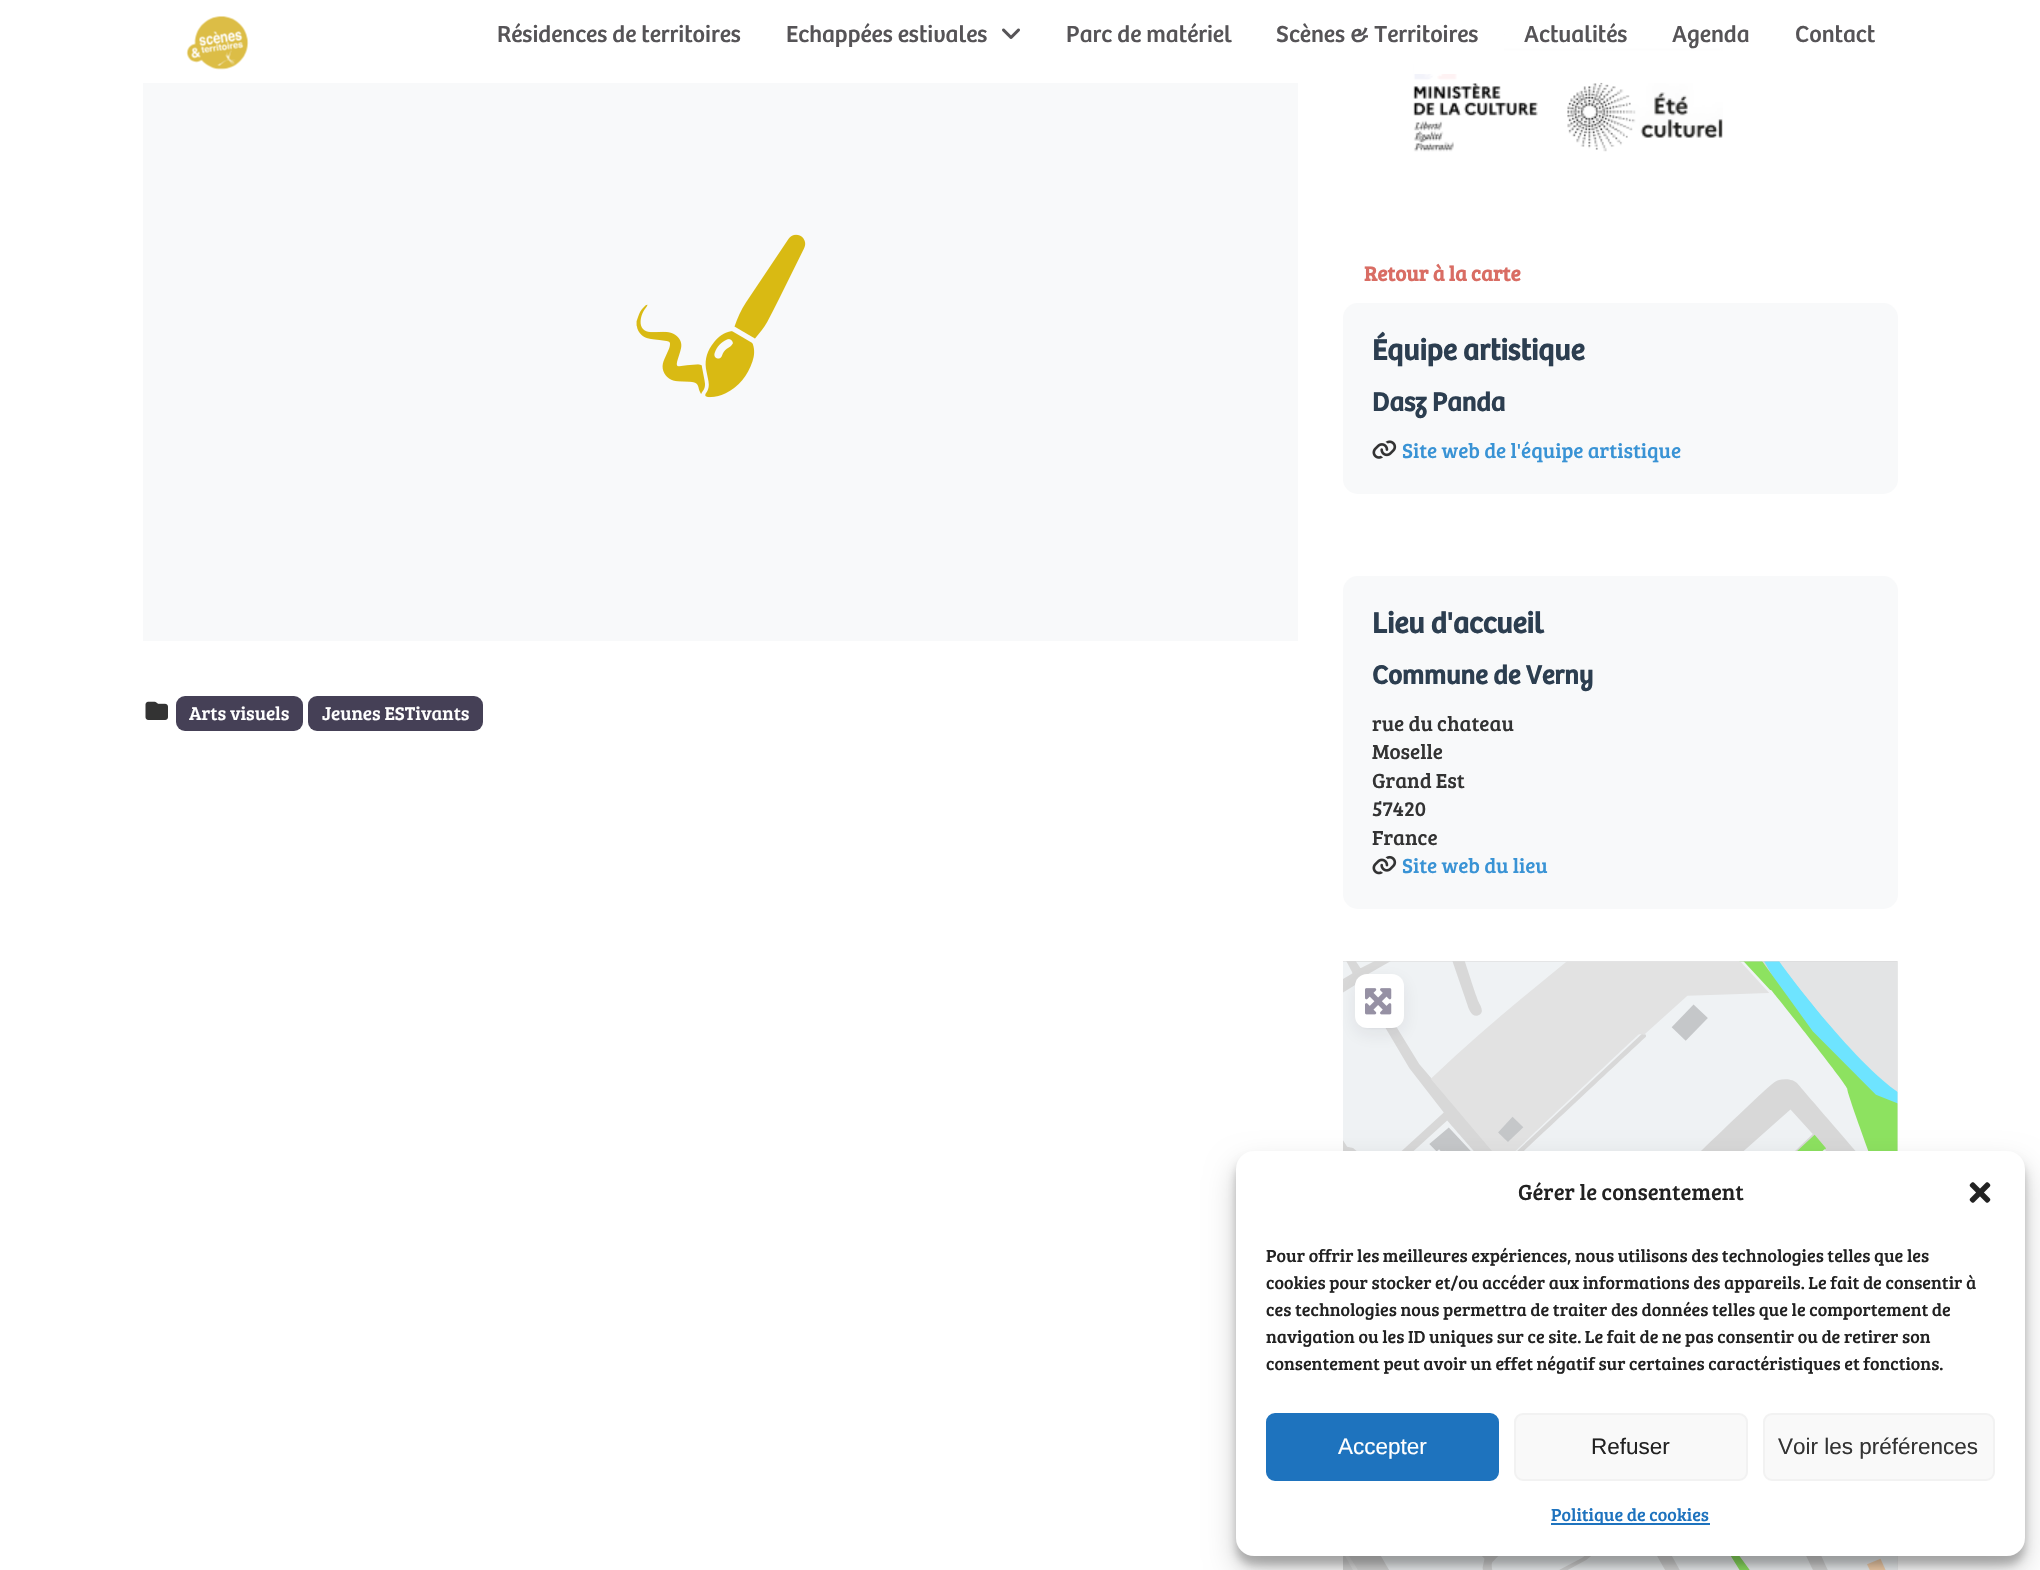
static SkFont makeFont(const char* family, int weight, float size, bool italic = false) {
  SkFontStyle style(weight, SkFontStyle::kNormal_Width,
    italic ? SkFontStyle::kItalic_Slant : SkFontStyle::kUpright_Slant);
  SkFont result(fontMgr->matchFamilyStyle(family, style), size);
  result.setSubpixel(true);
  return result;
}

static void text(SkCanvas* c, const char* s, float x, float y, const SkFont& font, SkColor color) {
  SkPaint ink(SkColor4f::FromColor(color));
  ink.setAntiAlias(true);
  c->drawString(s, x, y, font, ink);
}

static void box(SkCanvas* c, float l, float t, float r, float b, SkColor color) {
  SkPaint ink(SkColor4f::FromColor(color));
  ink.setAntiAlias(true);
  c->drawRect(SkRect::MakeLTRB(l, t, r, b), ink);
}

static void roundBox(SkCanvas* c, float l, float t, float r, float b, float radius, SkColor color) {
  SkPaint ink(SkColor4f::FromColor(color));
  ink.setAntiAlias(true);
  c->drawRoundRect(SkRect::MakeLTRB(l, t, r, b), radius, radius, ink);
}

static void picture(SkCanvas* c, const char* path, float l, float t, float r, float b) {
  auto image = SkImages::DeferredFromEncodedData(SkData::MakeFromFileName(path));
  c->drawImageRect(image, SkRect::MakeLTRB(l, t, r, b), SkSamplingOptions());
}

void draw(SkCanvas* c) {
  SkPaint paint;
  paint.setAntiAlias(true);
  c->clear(0xffffffff);
  picture(c, "img_03.png", 143, 0, 1298, 641);
  picture(c, "img_05.png", 1413, 29, 1723, 152);
  box(c, 143, 0, 1721, 83, 0xf2ffffff);
  picture(c, "img_01.png", 186, 16, 249, 70);
  box(c, 1414, 30, 1504, 74, 0xf2ffffff);
  SkFont face1 = makeFont("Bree", 400, 24);
  text(c, "Résidences de territoires", 497, 42, face1, 0xff565457);
  text(c, "Echappées estivales", 786, 42, face1, 0xff565457);
  picture(c, "img_02.png", 1002, 28, 1020, 39);
  text(c, "Parc de matériel", 1066, 42, face1, 0xff565457);
  text(c, "Scènes & Territoires", 1276, 42, face1, 0xff565457);
  text(c, "Actualités", 1524, 42, face1, 0xff565457);
  text(c, "Agenda", 1672, 42, face1, 0xff565457);
  text(c, "Contact", 1795, 42, face1, 0xff565457);
  picture(c, "img_04.png", 145, 701, 168, 720);
  roundBox(c, 176, 696, 303, 731, 9, 0xff454056);
  SkFont face2 = makeFont("Bree Serif", 400, 19);
  text(c, "Arts visuels", 189, 720, face2, 0xffffffff);
  roundBox(c, 308, 696, 483, 731, 9, 0xff454056);
  text(c, "Jeunes ESTivants", 322, 720, face2, 0xffffffff);
  SkFont face3 = makeFont("Bree Serif", 700, 21);
  text(c, "Retour à la carte", 1364, 281, face3, 0xffd96d64);
  roundBox(c, 1343, 303, 1898, 494, 15, 0xfff8f9fa);
  SkFont face4 = makeFont("Bree", 700, 30);
  text(c, "Équipe artistique", 1372, 360, face4, 0xff2c3e50);
  SkFont face5 = makeFont("Bree", 700, 27);
  text(c, "Dasz Panda", 1372, 411, face5, 0xff2c3e50);
  picture(c, "img_06.png", 1372, 440, 1397, 459);
  SkFont face6 = makeFont("Bree Serif", 400, 21);
  text(c, "Site web de l'équipe artistique", 1402, 458, face6, 0xff3993d5);
  roundBox(c, 1343, 576, 1898, 909, 15, 0xfff8f9fa);
  text(c, "Lieu d'accueil", 1372, 633, face4, 0xff2c3e50);
  text(c, "Commune de Verny", 1372, 684, face5, 0xff2c3e50);
  text(c, "rue du chateau", 1372, 731, face6, 0xff333333);
  text(c, "Moselle", 1372, 759, face6, 0xff333333);
  text(c, "Grand Est", 1372, 788, face6, 0xff333333);
  text(c, "57420", 1372, 816, face6, 0xff333333);
  text(c, "France", 1372, 845, face6, 0xff333333);
  picture(c, "img_07.png", 1372, 855, 1397, 875);
  text(c, "Site web du lieu", 1402, 873, face6, 0xff3993d5);
  picture(c, "img_09.png", 1343, 961, 1898, 1570);
  paint.setColor(0x141f1b2d);
  paint.setMaskFilter(SkMaskFilter::MakeBlur(kNormal_SkBlurStyle, 9));
  c->drawRoundRect(SkRect::MakeLTRB(1355, 980, 1404, 1034), 12, 12, paint);
  paint.setMaskFilter(nullptr);
  paint.setMaskFilter(SkMaskFilter::MakeBlur(kNormal_SkBlurStyle, 1.5f));
  c->drawRoundRect(SkRect::MakeLTRB(1358, 980, 1401, 1028), 9, 9, paint);
  paint.setMaskFilter(nullptr);
  roundBox(c, 1355, 974, 1404, 1028, 12, 0xffffffff);
  picture(c, "img_08.png", 1365, 988, 1392, 1015);
  paint.setColor(0x3b000000);
  paint.setMaskFilter(SkMaskFilter::MakeBlur(kNormal_SkBlurStyle, 4.5f));
  c->drawRoundRect(SkRect::MakeLTRB(1236, 1160, 2025, 1565), 18, 18, paint);
  paint.setMaskFilter(nullptr);
  paint.setColor(0x30000000);
  paint.setMaskFilter(SkMaskFilter::MakeBlur(kNormal_SkBlurStyle, 15));
  c->drawRoundRect(SkRect::MakeLTRB(1236, 1166, 2025, 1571), 18, 18, paint);
  paint.setMaskFilter(nullptr);
  roundBox(c, 1236, 1151, 2025, 1556, 18, 0xffffffff);
  SkFont face7 = makeFont("Bree Serif", 400, 22.5f);
  text(c, "Gérer le consentement", 1518, 1200, face7, 0xff222222);
  picture(c, "img_10.png", 1969, 1182, 1991, 1203);
  SkFont face8 = makeFont("Bree Serif", 400, 18);
  text(c, "Pour offrir les meilleures expériences, nous utilisons des technologies telles que les", 1266, 1262, face8, 0xff222222);
  text(c, "cookies pour stocker et/ou accéder aux informations des appareils. Le fait de consentir à", 1266, 1289, face8, 0xff222222);
  text(c, "ces technologies nous permettra de traiter des données telles que le comportement de", 1266, 1316, face8, 0xff222222);
  text(c, "navigation ou les ID uniques sur ce site. Le fait de ne pas consentir ou de retirer son", 1266, 1343, face8, 0xff222222);
  text(c, "consentement peut avoir un effet négatif sur certaines caractéristiques et fonctions.", 1266, 1370, face8, 0xff222222);
  paint.setColor(0xff1e73be);
  c->drawRoundRect(SkRect::MakeLTRB(1267, 1414, 1498, 1480), 8, 8, paint);
  paint.setStyle(SkPaint::kStroke_Style);
  paint.setStrokeWidth(2);
  c->drawRoundRect(SkRect::MakeLTRB(1267, 1414, 1498, 1480), 8, 8, paint);
  SkFont face9 = makeFont("Liberation Sans", 400, 22.5f);
  text(c, "Accepter", 1338, 1454, face9, 0xffffffff);
  paint.setStyle(SkPaint::kFill_Style);
  paint.setColor(0xfff9f9f9);
  c->drawRoundRect(SkRect::MakeLTRB(1515, 1414, 1747, 1480), 8, 8, paint);
  paint.setStyle(SkPaint::kStroke_Style);
  paint.setColor(0xfff2f2f2);
  c->drawRoundRect(SkRect::MakeLTRB(1515, 1414, 1747, 1480), 8, 8, paint);
  text(c, "Refuser", 1591, 1454, face9, 0xff222222);
  paint.setStyle(SkPaint::kFill_Style);
  paint.setColor(0xfff9f9f9);
  c->drawRoundRect(SkRect::MakeLTRB(1764, 1414, 1994, 1480), 8, 8, paint);
  paint.setStyle(SkPaint::kStroke_Style);
  paint.setColor(0xfff2f2f2);
  c->drawRoundRect(SkRect::MakeLTRB(1764, 1414, 1994, 1480), 8, 8, paint);
  text(c, "Voir les préférences", 1778, 1454, face9, 0xff333333);
  box(c, 1551, 1523, 1710, 1525, 0xff1e73be);
  text(c, "Politique de cookies", 1551, 1521, face8, 0xff1e73be);
}
